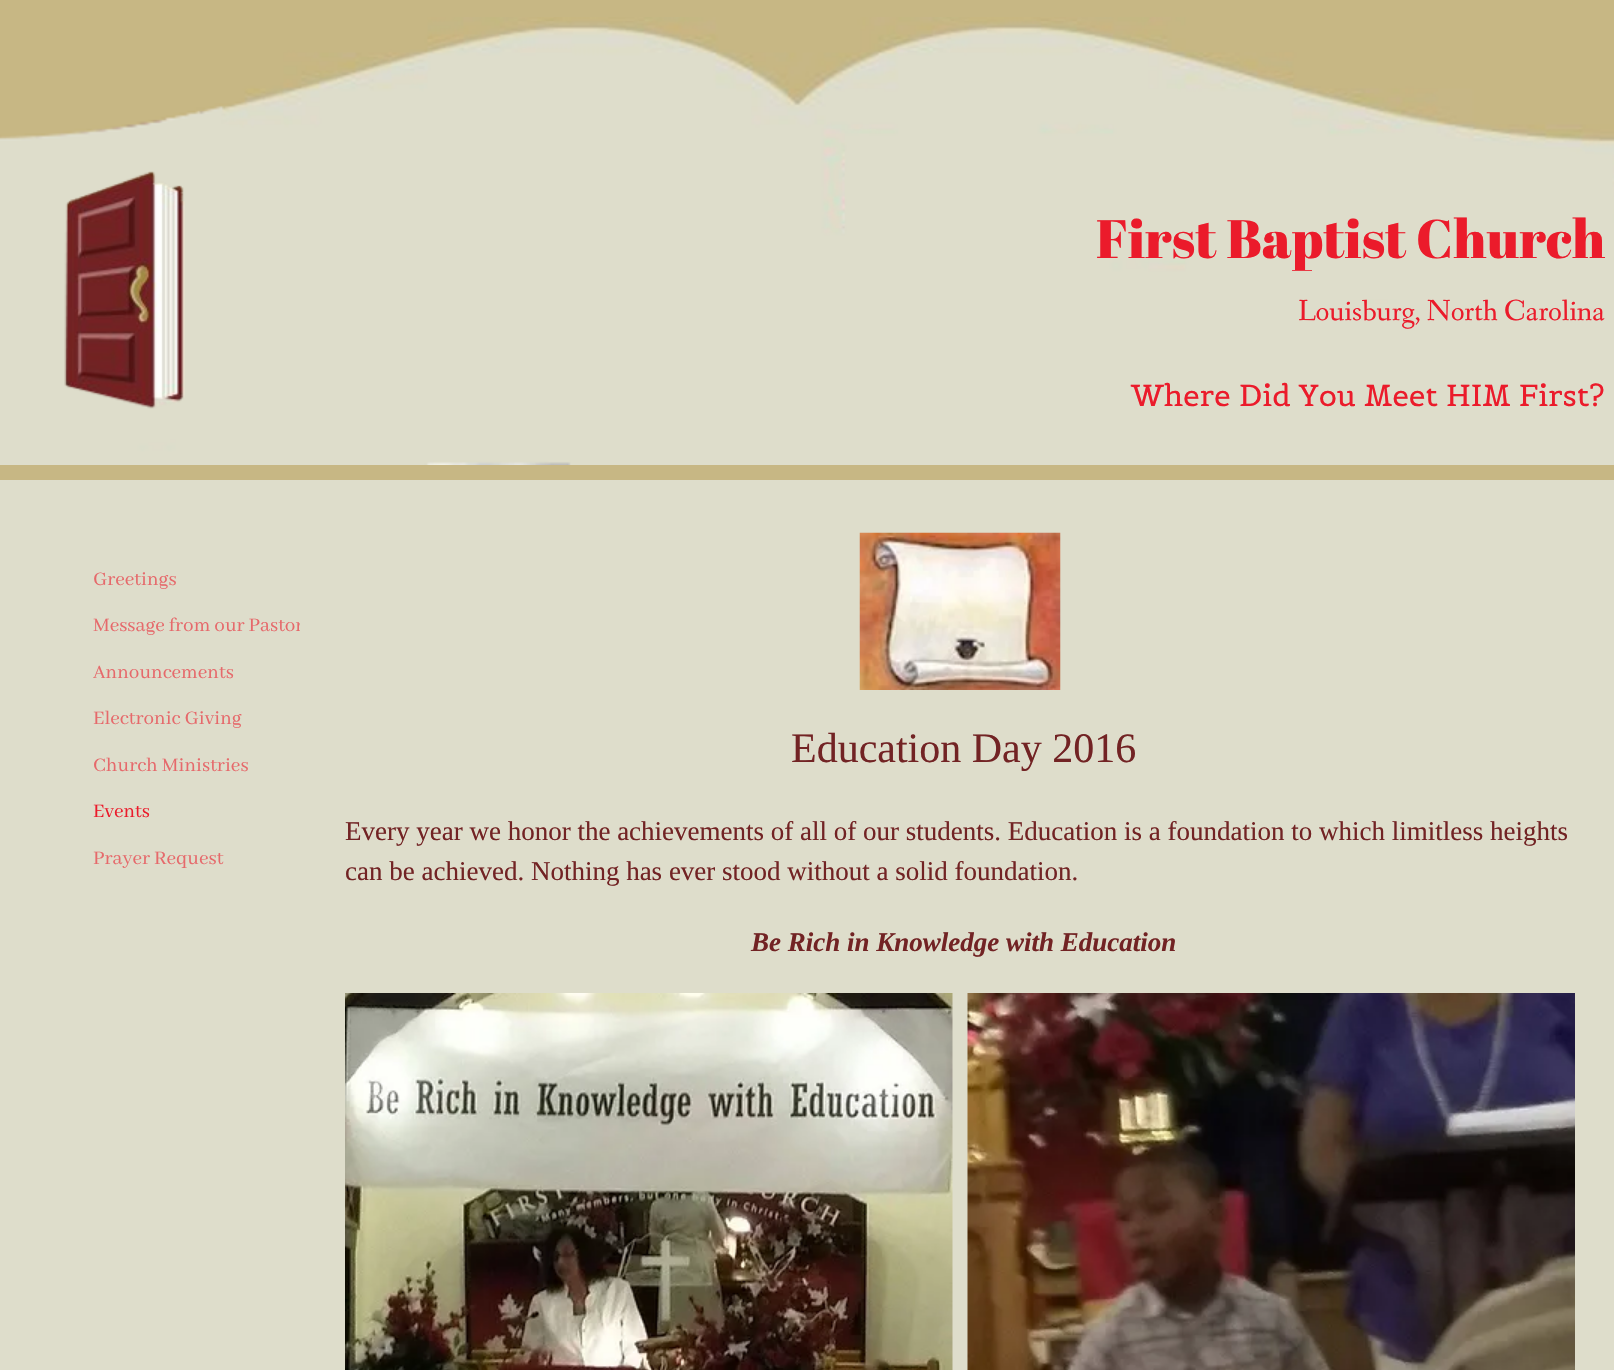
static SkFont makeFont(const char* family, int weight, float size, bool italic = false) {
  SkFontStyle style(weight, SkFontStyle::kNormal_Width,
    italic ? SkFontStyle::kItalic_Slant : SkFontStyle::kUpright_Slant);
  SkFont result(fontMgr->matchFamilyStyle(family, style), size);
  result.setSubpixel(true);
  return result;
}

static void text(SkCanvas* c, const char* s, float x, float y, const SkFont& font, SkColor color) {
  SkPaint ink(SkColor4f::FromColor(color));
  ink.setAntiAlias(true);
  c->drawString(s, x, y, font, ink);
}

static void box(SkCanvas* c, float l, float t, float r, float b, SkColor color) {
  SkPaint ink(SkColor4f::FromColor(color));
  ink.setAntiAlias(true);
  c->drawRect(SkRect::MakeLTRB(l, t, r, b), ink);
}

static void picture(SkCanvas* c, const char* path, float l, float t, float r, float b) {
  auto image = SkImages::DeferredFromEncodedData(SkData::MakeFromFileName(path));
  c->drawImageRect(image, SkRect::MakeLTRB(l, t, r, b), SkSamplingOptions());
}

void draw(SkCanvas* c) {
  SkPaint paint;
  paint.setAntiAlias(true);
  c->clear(0xffc7b784);
  picture(c, "img_01.png", 0, 17, 1614, 465);
  picture(c, "img_02.png", 64, 171, 185, 409);
  SkFont face1 = makeFont("Abril Fatface", 400, 54);
  text(c, "First Baptist Church", 1096, 258, face1, 0xffeb1b2b);
  SkFont face2 = makeFont("Fanwood Text", 400, 30);
  text(c, "Louisburg, North Carolina", 1298, 320, face2, 0xffeb1b2b);
  SkFont face3 = makeFont("Belgrano", 400, 30);
  text(c, "Where Did You Meet HIM First?", 1131, 406, face3, 0xffeb1b2b);
  box(c, 0, 480, 300, 1370, 0xffdeddcb);
  SkFont face4 = makeFont("Abhaya Libre", 400, 21);
  text(c, "Greetings", 93, 585, face4, 0xffe6696b);
  text(c, "Message from our Pastor", 93, 631, face4, 0xffe6696b);
  text(c, "Announcements", 93, 678, face4, 0xffe6696b);
  text(c, "Electronic Giving", 93, 724, face4, 0xffe6696b);
  text(c, "Church Ministries", 93, 771, face4, 0xffe6696b);
  text(c, "Events", 93, 817, face4, 0xffeb1b2b);
  text(c, "Prayer Request", 93, 864, face4, 0xffe6696b);
  box(c, 300, 480, 1614, 1370, 0xffdeddcb);
  picture(c, "img_03.png", 859, 532, 1061, 690);
  SkFont face5 = makeFont("Liberation Serif", 400, 42);
  text(c, "Education Day 2016", 791, 762, face5, 0xff722324);
  SkFont face6 = makeFont("Liberation Serif", 400, 27);
  text(c, "Every year we honor the achievements of all of our students. Education is a foundation to which limitless heights", 345, 840, face6, 0xff722324);
  text(c, "can be achieved. Nothing has ever stood without a solid foundation.", 345, 880, face6, 0xff722324);
  SkFont face7 = makeFont("Liberation Serif", 700, 27, true);
  text(c, "Be Rich in Knowledge with Education", 751, 951, face7, 0xff722324);
  picture(c, "img_04.png", 345, 993, 953, 1370);
  picture(c, "img_05.png", 967, 993, 1575, 1370);
}
